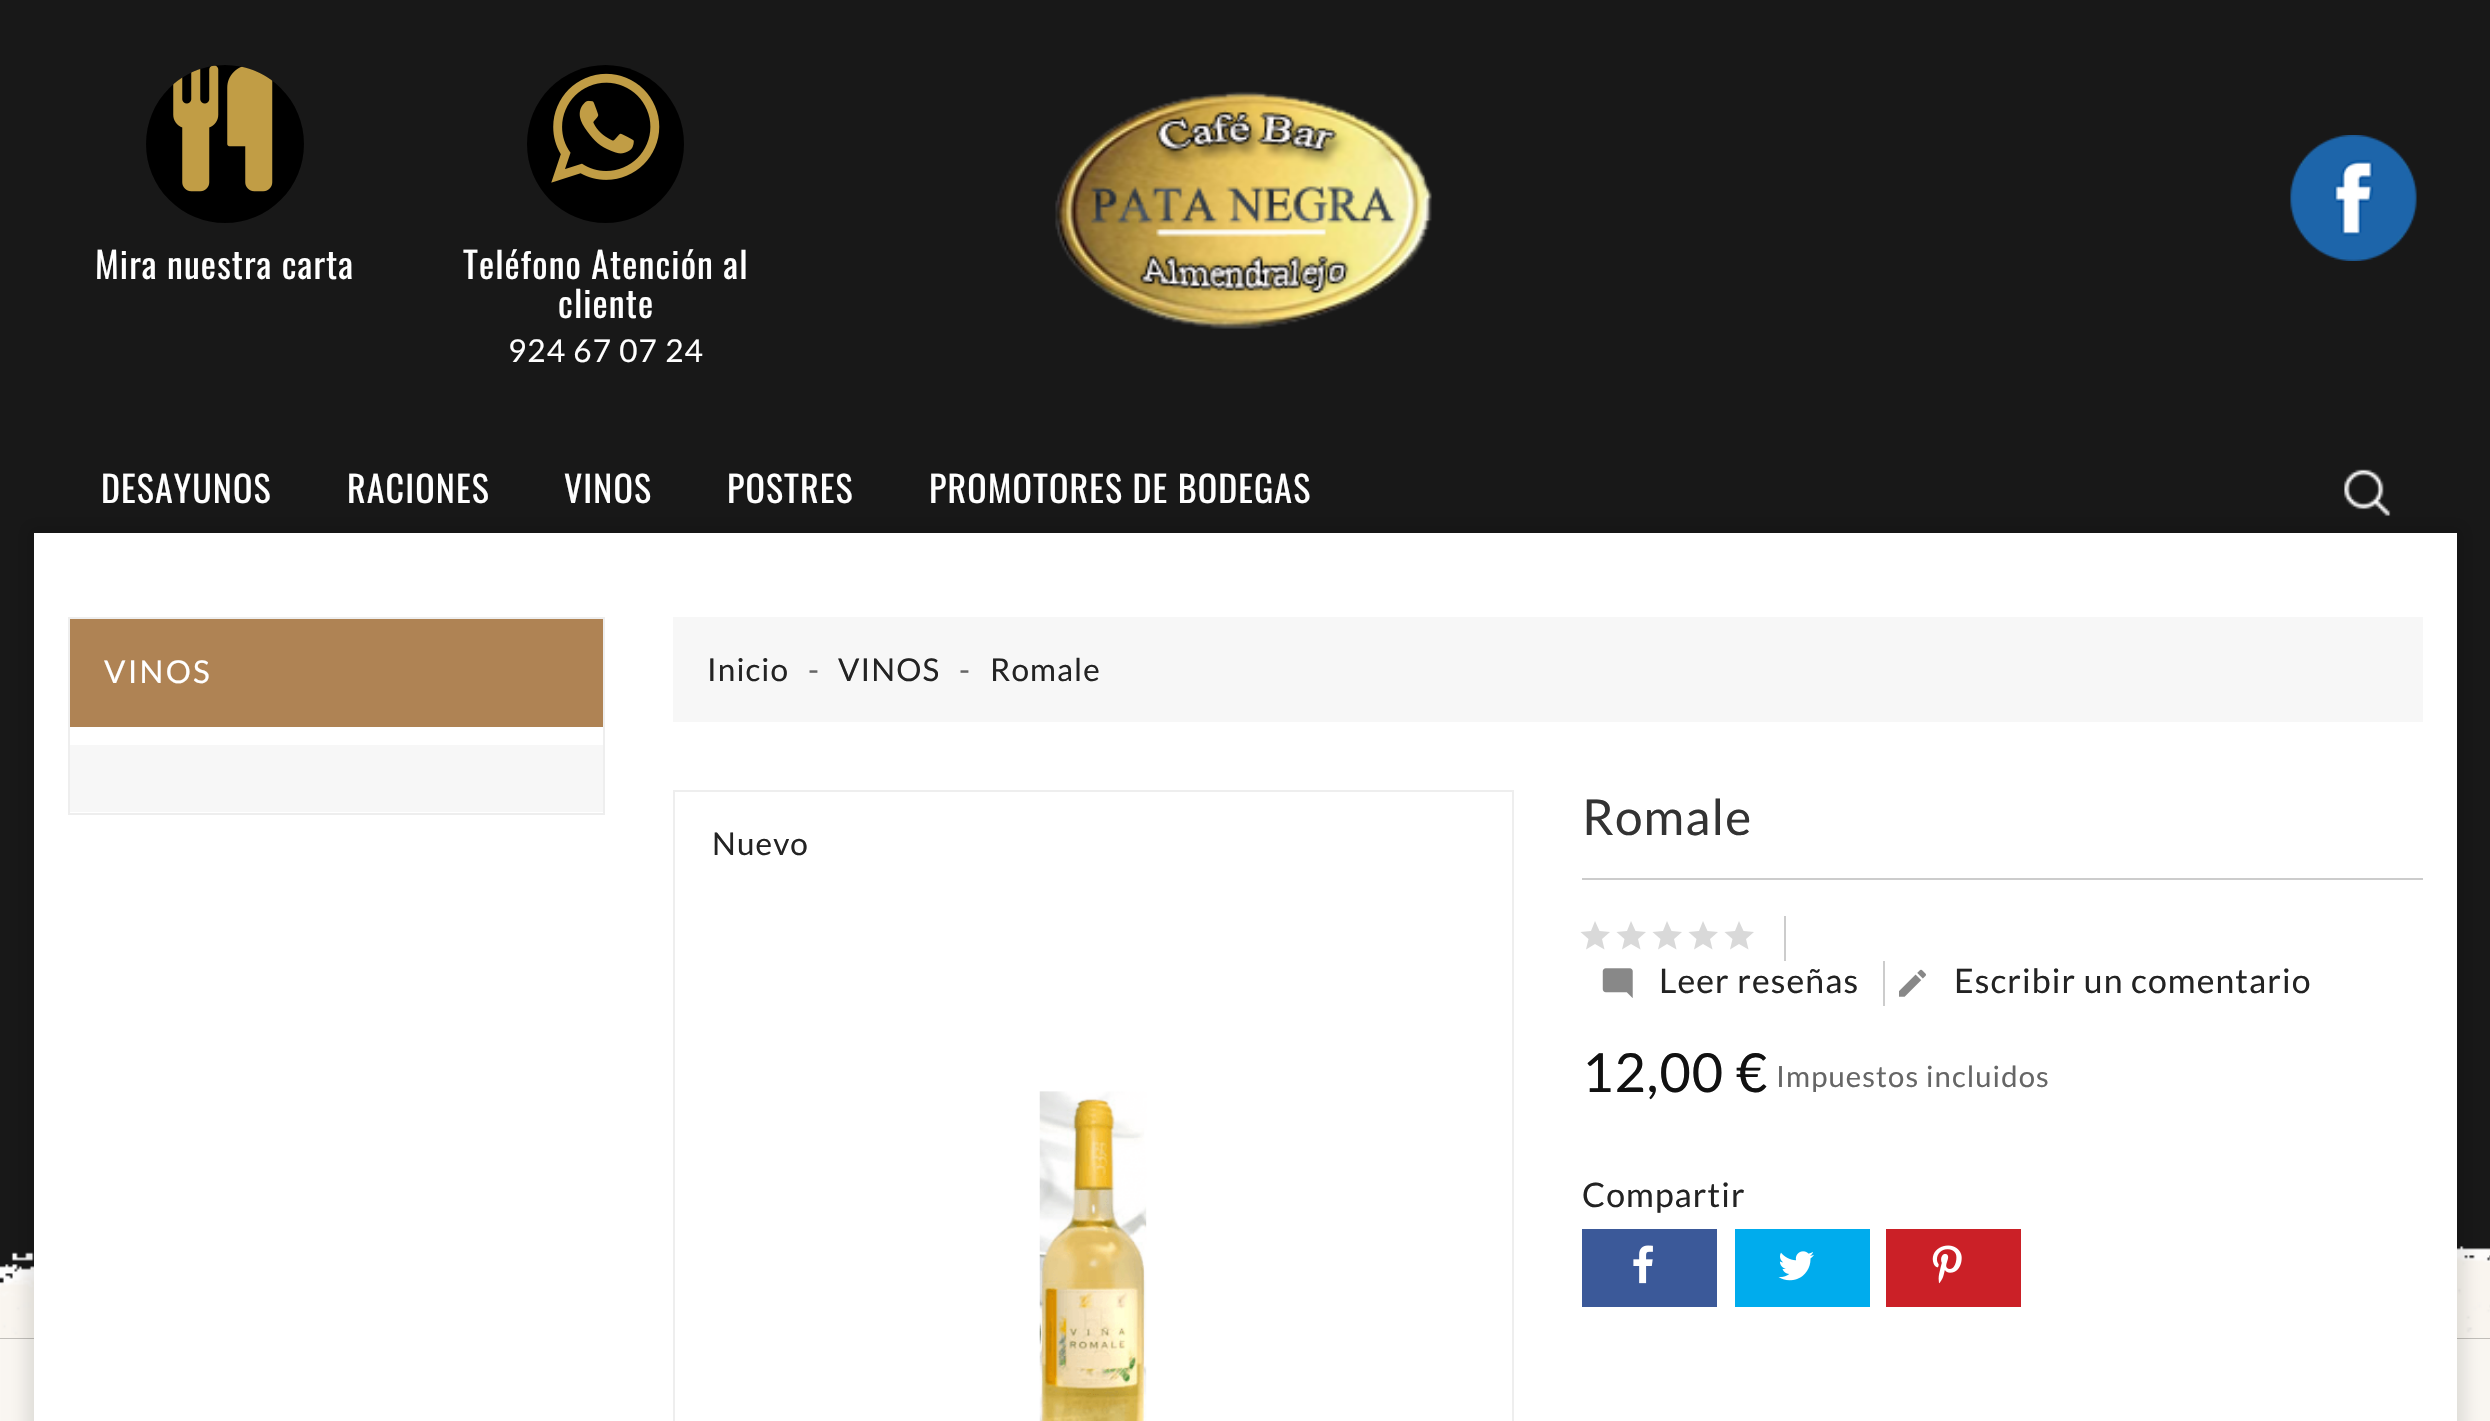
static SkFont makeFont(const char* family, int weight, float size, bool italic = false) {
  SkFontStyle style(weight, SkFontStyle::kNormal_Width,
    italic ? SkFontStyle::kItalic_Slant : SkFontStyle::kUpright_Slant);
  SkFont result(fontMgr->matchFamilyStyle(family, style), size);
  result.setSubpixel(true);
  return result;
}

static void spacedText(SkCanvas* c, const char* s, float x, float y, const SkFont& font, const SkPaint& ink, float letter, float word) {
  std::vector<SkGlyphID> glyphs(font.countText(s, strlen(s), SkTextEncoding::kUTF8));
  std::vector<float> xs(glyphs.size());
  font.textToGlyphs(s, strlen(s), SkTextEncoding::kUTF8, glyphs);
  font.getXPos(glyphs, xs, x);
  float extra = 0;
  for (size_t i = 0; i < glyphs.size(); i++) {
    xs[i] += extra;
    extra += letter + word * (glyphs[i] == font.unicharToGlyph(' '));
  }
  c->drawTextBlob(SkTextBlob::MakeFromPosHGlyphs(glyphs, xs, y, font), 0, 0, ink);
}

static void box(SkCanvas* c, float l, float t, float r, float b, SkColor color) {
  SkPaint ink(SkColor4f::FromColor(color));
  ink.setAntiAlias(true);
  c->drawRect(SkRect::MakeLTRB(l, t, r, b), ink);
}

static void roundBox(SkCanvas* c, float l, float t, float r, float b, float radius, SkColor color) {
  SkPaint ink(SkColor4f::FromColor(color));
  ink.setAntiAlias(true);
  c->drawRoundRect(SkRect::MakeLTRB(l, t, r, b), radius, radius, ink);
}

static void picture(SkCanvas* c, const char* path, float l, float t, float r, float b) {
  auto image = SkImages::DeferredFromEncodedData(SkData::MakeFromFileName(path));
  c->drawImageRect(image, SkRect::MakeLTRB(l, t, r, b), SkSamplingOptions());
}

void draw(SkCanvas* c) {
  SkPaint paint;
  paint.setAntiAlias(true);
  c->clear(0xfffaf7f2);
  box(c, 0, 0, 2490, 1339, 0xff181818);
  picture(c, "img_01.png", 0, 1246, 2490, 1339);
  picture(c, "img_02.png", 1055, 91, 1432, 329);
  picture(c, "img_03.png", 2290, 135, 2417, 261);
  paint.setColor(0xff000000);
  c->drawCircle(225, 144, 79, paint);
  picture(c, "img_04.png", 173, 65, 273, 192);
  SkFont face1 = makeFont("Oswald", 400, 36);
  paint.setColor(0xffffffff);
  spacedText(c, "Mira nuestra carta", 95, 279, face1, paint, 1.1f, 0);
  roundBox(c, 527, 65, 684, 223, 78.5f, 0xff000000);
  picture(c, "img_05.png", 551, 73, 660, 183);
  spacedText(c, "Teléfono Atención al", 463, 279, face1, paint, 1.1f, 0);
  spacedText(c, "cliente", 558, 318, face1, paint, 1.1f, 0);
  SkFont face2 = makeFont("Lato", 400, 31.5f);
  spacedText(c, "924 67 07 24", 508, 362, face2, paint, 1.1f, 0);
  spacedText(c, "DESAYUNOS", 101, 503, face1, paint, 1.1f, 0);
  spacedText(c, "RACIONES", 347, 503, face1, paint, 1.1f, 0);
  spacedText(c, "VINOS", 564, 503, face1, paint, 1.1f, 0);
  spacedText(c, "POSTRES", 727, 503, face1, paint, 1.1f, 0);
  spacedText(c, "PROMOTORES DE BODEGAS", 929, 503, face1, paint, 1.1f, 0);
  picture(c, "img_06.png", 2344, 469, 2391, 516);
  paint.setColor(0x1a000000);
  paint.setMaskFilter(SkMaskFilter::MakeBlur(kNormal_SkBlurStyle, 8));
  c->drawRect(SkRect::MakeLTRB(25, 524, 2466, 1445), paint);
  paint.setMaskFilter(nullptr);
  box(c, 34, 533, 2457, 1421, 0xffffffff);
  paint.setStyle(SkPaint::kStroke_Style);
  paint.setStrokeWidth(2);
  paint.setColor(0xffeeeeee);
  c->drawRect(SkRect::MakeLTRB(69, 618, 604, 814), paint);
  box(c, 70, 619, 603, 727, 0xffaf8354);
  paint.setStyle(SkPaint::kFill_Style);
  paint.setColor(0xffffffff);
  spacedText(c, "VINOS", 104, 683, face2, paint, 2.25f, 0);
  box(c, 70, 745, 603, 812, 0xfff7f7f7);
  box(c, 673, 617, 2423, 722, 0xfff7f7f7);
  paint.setColor(0xff232323);
  spacedText(c, "Inicio", 707, 681, face2, paint, 1.1f, 0);
  paint.setColor(0xff666666);
  spacedText(c, "-", 808, 681, face2, paint, 1.1f, 0);
  paint.setColor(0xff232323);
  spacedText(c, "VINOS", 838, 681, face2, paint, 1.1f, 0);
  paint.setColor(0xff666666);
  spacedText(c, "-", 959, 681, face2, paint, 1.1f, 0);
  paint.setColor(0xff232323);
  spacedText(c, "Romale", 990, 681, face2, paint, 1.1f, 0);
  paint.setStyle(SkPaint::kStroke_Style);
  paint.setColor(0xffeeeeee);
  c->drawRect(SkRect::MakeLTRB(674, 791, 1513, 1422), paint);
  picture(c, "img_07.png", 1039, 1091, 1147, 1421);
  paint.setStyle(SkPaint::kFill_Style);
  paint.setColor(0xff232323);
  spacedText(c, "Nuevo", 712, 855, face2, paint, 1.1f, 0);
  box(c, 1582, 878, 2423, 880, 0xffcccccc);
  SkFont face3 = makeFont("Lato", 400, 49.5f);
  paint.setColor(0xff333333);
  spacedText(c, "Romale", 1582, 835, face3, paint, 1.1f, 0);
  paint.setColor(0xffd9d9d9);
  c->drawPath(SkPathBuilder().moveTo(1595, 944).lineTo(1586, 949.5f).lineTo(1588.5f, 939).lineTo(1580.5f, 932).lineTo(1591, 931).lineTo(1595, 921).lineTo(1599.5f, 931).lineTo(1610, 932).lineTo(1602, 939).lineTo(1604.5f, 949.5f).close().detach(), paint);
  c->drawPath(SkPathBuilder().moveTo(1631, 944).lineTo(1622, 949.5f).lineTo(1624.5f, 939).lineTo(1616.5f, 932).lineTo(1627, 931).lineTo(1631, 921).lineTo(1635.5f, 931).lineTo(1646, 932).lineTo(1638, 939).lineTo(1640.5f, 949.5f).close().detach(), paint);
  c->drawPath(SkPathBuilder().moveTo(1667, 944).lineTo(1658, 949.5f).lineTo(1660.5f, 939).lineTo(1652.5f, 932).lineTo(1663, 931).lineTo(1667, 921).lineTo(1671.5f, 931).lineTo(1682, 932).lineTo(1674, 939).lineTo(1676.5f, 949.5f).close().detach(), paint);
  c->drawPath(SkPathBuilder().moveTo(1703, 944).lineTo(1694, 949.5f).lineTo(1696.5f, 939).lineTo(1688.5f, 932).lineTo(1699, 931).lineTo(1703, 921).lineTo(1707.5f, 931).lineTo(1718, 932).lineTo(1710, 939).lineTo(1712.5f, 949.5f).close().detach(), paint);
  c->drawPath(SkPathBuilder().moveTo(1739, 944).lineTo(1730, 949.5f).lineTo(1732.5f, 939).lineTo(1724.5f, 932).lineTo(1735, 931).lineTo(1739, 921).lineTo(1743.5f, 931).lineTo(1754, 932).lineTo(1746, 939).lineTo(1748.5f, 949.5f).close().detach(), paint);
  box(c, 1784, 916, 1786, 961, 0xffcccccc);
  picture(c, "img_08.png", 1602, 968, 1633, 998);
  SkFont face4 = makeFont("Lato", 400, 33.75f);
  paint.setColor(0xff232323);
  spacedText(c, "Leer reseñas", 1659, 993, face4, paint, 1.1f, 0);
  box(c, 1883, 961, 1885, 1006, 0xffcccccc);
  picture(c, "img_09.png", 1899, 969, 1926, 997);
  spacedText(c, "Escribir un comentario", 1954, 993, face4, paint, 1.1f, 0);
  SkFont face5 = makeFont("Lato", 400, 54);
  paint.setColor(0xff111111);
  spacedText(c, "12,00 €", 1582, 1092, face5, paint, 1.1f, 0);
  SkFont face6 = makeFont("Lato", 400, 29.25f);
  paint.setColor(0xff666666);
  spacedText(c, "Impuestos incluidos", 1776, 1087, face6, paint, 1.1f, 0);
  paint.setColor(0xff232323);
  spacedText(c, "Compartir", 1582, 1207, face4, paint, 1.1f, 0);
  box(c, 1582, 1229, 1717, 1307, 0xff3b5999);
  picture(c, "img_10.png", 1633, 1245, 1653, 1284);
  box(c, 1735, 1229, 1870, 1307, 0xff00aced);
  picture(c, "img_11.png", 1778, 1251, 1814, 1281);
  box(c, 1886, 1229, 2021, 1307, 0xffcb2027);
  picture(c, "img_12.png", 1932, 1245, 1962, 1284);
}
